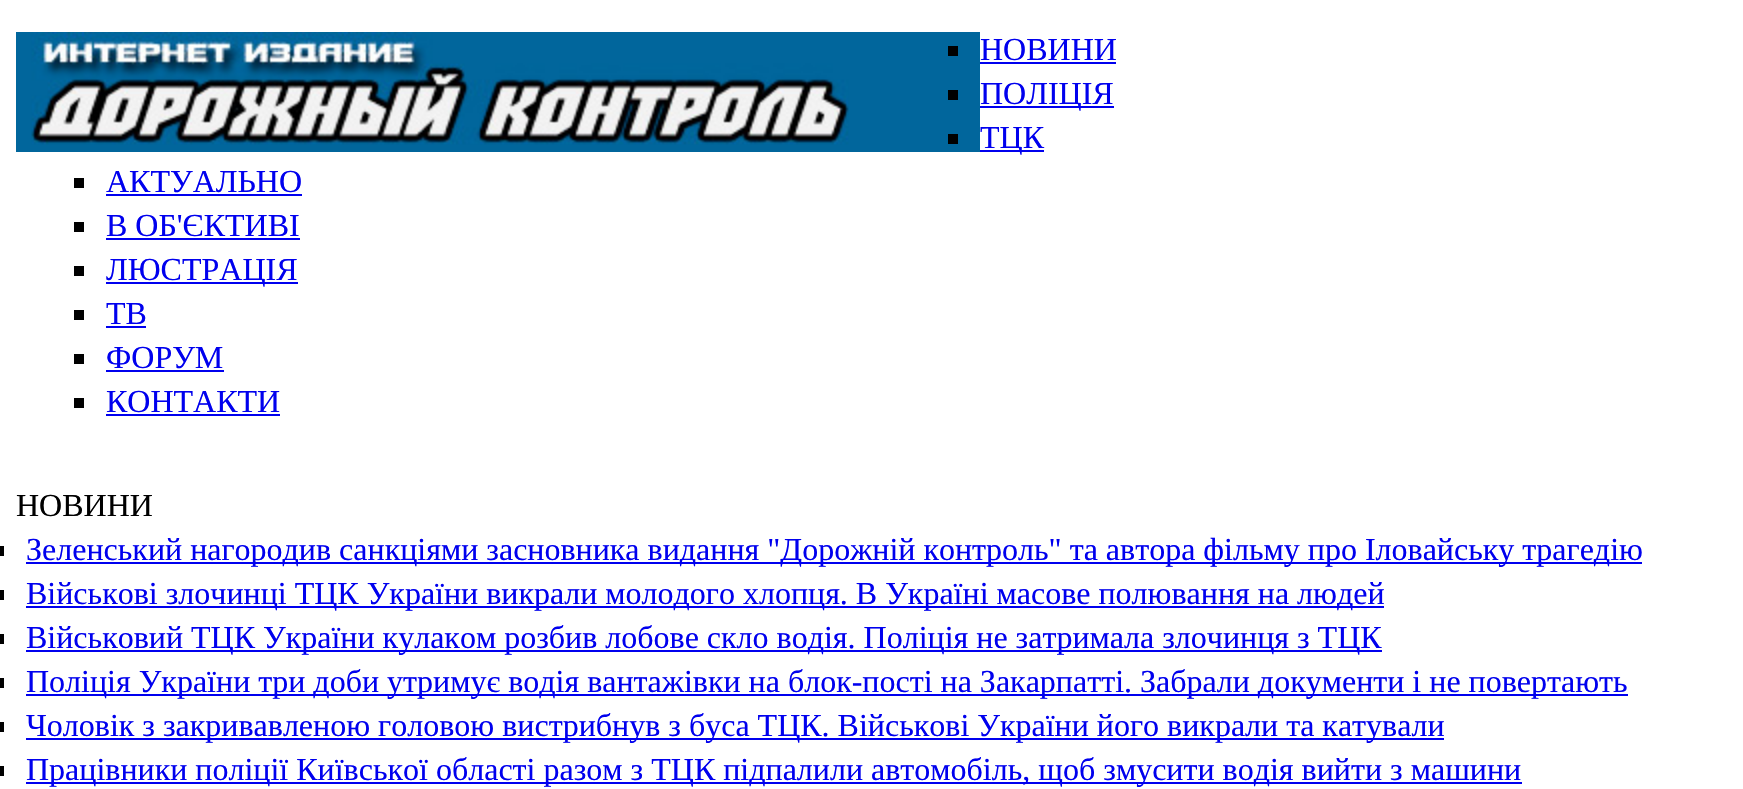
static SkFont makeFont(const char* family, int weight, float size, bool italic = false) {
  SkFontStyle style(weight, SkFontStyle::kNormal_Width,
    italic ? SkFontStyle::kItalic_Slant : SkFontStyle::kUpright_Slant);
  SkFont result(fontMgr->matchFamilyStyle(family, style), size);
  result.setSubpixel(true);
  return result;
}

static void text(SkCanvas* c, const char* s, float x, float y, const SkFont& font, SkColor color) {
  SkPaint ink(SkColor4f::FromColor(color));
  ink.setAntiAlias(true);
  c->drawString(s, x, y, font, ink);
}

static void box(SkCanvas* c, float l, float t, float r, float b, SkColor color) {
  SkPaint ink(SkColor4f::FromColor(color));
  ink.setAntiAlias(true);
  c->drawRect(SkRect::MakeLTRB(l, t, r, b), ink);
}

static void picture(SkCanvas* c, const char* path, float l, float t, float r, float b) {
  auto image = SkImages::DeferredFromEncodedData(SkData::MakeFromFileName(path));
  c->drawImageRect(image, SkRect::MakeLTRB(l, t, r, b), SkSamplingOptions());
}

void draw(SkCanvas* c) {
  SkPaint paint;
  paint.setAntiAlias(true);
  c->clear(0xffffffff);
  picture(c, "img_01.png", 16, 32, 980, 152);
  box(c, 948, 46, 958, 56, 0xff000000);
  SkFont face1 = makeFont("Liberation Serif", 400, 32);
  text(c, "НОВИНИ", 980, 60, face1, 0xff0000ee);
  box(c, 980, 62, 1116, 64, 0xff0000ee);
  box(c, 948, 90, 958, 100, 0xff000000);
  box(c, 980, 106, 1114, 108, 0xff0000ee);
  text(c, "ПОЛІЦІЯ", 980, 104, face1, 0xff0000ee);
  box(c, 948, 134, 958, 144, 0xff000000);
  box(c, 980, 150, 1044, 152, 0xff0000ee);
  text(c, "ТЦК", 980, 148, face1, 0xff0000ee);
  box(c, 74, 178, 84, 188, 0xff000000);
  text(c, "АКТУАЛЬНО", 106, 192, face1, 0xff0000ee);
  box(c, 106, 194, 302, 196, 0xff0000ee);
  box(c, 74, 222, 84, 232, 0xff000000);
  text(c, "В ОБ'ЄКТИВІ", 106, 236, face1, 0xff0000ee);
  box(c, 106, 238, 300, 240, 0xff0000ee);
  box(c, 74, 266, 84, 276, 0xff000000);
  box(c, 106, 282, 298, 284, 0xff0000ee);
  text(c, "ЛЮСТРАЦІЯ", 106, 280, face1, 0xff0000ee);
  box(c, 74, 310, 84, 320, 0xff000000);
  text(c, "ТВ", 106, 324, face1, 0xff0000ee);
  box(c, 106, 326, 146, 328, 0xff0000ee);
  box(c, 74, 354, 84, 364, 0xff000000);
  text(c, "ФОРУМ", 106, 368, face1, 0xff0000ee);
  box(c, 106, 370, 224, 372, 0xff0000ee);
  box(c, 74, 398, 84, 408, 0xff000000);
  text(c, "КОНТАКТИ", 106, 412, face1, 0xff0000ee);
  box(c, 106, 414, 280, 416, 0xff0000ee);
  text(c, "НОВИНИ", 16, 516, face1, 0xff000000);
  box(c, 0, 546, 4, 556, 0xff000000);
  box(c, 26, 562, 1642, 564, 0xff0000ee);
  text(c, "Зеленський нагородив санкціями засновника видання \"Дорожній контроль\" та автора фільму про Іловайську трагедію", 26, 560, face1, 0xff0000ee);
  box(c, 0, 590, 4, 600, 0xff000000);
  box(c, 26, 606, 1384, 608, 0xff0000ee);
  text(c, "Військові злочинці ТЦК України викрали молодого хлопця. В Україні масове полювання на людей", 26, 604, face1, 0xff0000ee);
  box(c, 0, 634, 4, 644, 0xff000000);
  box(c, 26, 650, 1382, 652, 0xff0000ee);
  text(c, "Військовий ТЦК України кулаком розбив лобове скло водія. Поліція не затримала злочинця з ТЦК", 26, 648, face1, 0xff0000ee);
  box(c, 0, 678, 4, 688, 0xff000000);
  box(c, 26, 694, 1628, 696, 0xff0000ee);
  text(c, "Поліція України три доби утримує водія вантажівки на блок-пості на Закарпатті. Забрали документи і не повертають", 26, 692, face1, 0xff0000ee);
  box(c, 0, 722, 4, 732, 0xff000000);
  box(c, 26, 738, 1444, 740, 0xff0000ee);
  text(c, "Чоловік з закривавленою головою вистрибнув з буса ТЦК. Військові України його викрали та катували", 26, 736, face1, 0xff0000ee);
  box(c, 0, 766, 4, 776, 0xff000000);
  box(c, 26, 782, 1522, 784, 0xff0000ee);
  text(c, "Працівники поліції Київської області разом з ТЦК підпалили автомобіль, щоб змусити водія вийти з машини", 26, 780, face1, 0xff0000ee);
}
